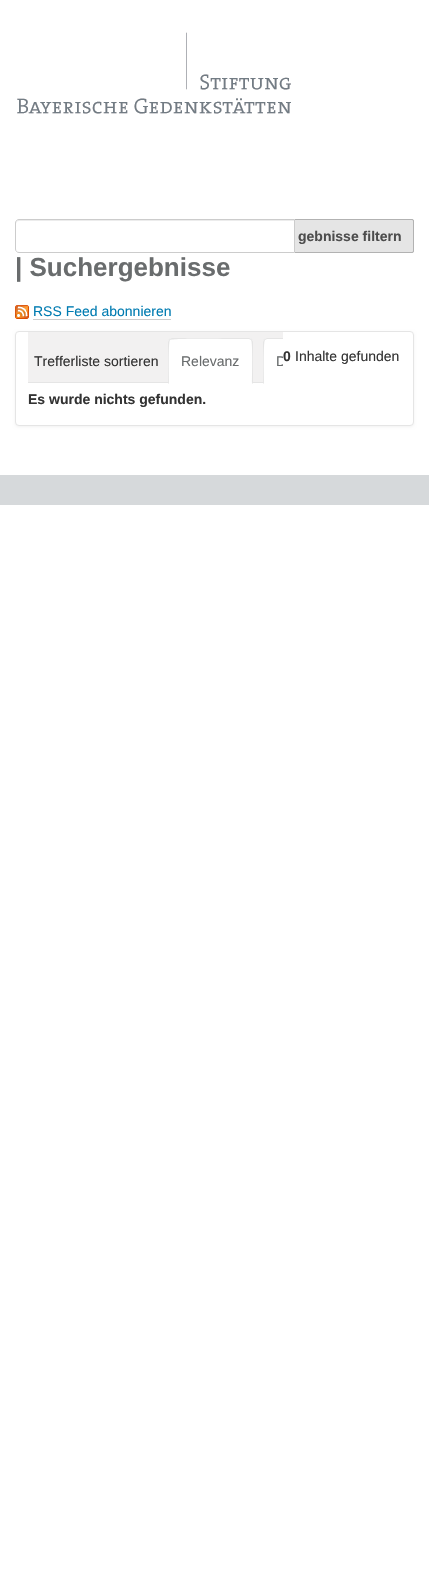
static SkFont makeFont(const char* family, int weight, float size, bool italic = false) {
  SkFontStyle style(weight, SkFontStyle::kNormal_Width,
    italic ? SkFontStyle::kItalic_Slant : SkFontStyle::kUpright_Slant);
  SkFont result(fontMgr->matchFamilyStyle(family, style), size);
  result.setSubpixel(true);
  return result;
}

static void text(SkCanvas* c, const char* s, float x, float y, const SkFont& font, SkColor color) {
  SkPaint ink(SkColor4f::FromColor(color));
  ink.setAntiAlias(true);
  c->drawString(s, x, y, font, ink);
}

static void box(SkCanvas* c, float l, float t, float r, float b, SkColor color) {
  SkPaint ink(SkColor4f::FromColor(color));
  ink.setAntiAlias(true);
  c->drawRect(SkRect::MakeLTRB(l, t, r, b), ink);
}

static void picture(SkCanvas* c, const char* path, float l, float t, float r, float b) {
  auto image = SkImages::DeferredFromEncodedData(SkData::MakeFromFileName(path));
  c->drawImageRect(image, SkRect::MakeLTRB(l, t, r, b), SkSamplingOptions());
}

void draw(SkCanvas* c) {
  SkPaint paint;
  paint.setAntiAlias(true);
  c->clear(0xffffffff);
  picture(c, "img_01.png", 17, 32, 291, 114);
  paint.setStyle(SkPaint::kStroke_Style);
  paint.setStrokeWidth(1);
  paint.setColor(0xffb2b2b2);
  c->drawPath(SkPathBuilder().moveTo(294.5f, 219.5f).lineTo(412, 219.5f).cubicTo(413, 219.5f, 413.5f, 220, 413.5f, 221).lineTo(413.5f, 251).cubicTo(413.5f, 252, 413, 252.5f, 412, 252.5f).lineTo(294.5f, 252.5f).close().detach(), paint);
  paint.setStyle(SkPaint::kFill_Style);
  paint.setColor(0xffe5e5e5);
  c->drawRoundRect(SkRect::MakeLTRB(270.5f, 219.5f, 413.5f, 252.5f), 1.5f, 1.5f, paint);
  paint.setStyle(SkPaint::kStroke_Style);
  paint.setColor(0xffb2b2b2);
  c->drawRoundRect(SkRect::MakeLTRB(270.5f, 219.5f, 413.5f, 252.5f), 1.5f, 1.5f, paint);
  paint.setStyle(SkPaint::kFill_Style);
  paint.setColor(0xffffffff);
  c->drawPath(SkPathBuilder().moveTo(19, 219).lineTo(295, 219).lineTo(295, 253).lineTo(19, 253).cubicTo(17, 253, 15, 251, 15, 249).lineTo(15, 223).cubicTo(15, 221, 17, 219, 19, 219).close().detach(), paint);
  paint.setColor(0xffececec);
  c->drawPath(SkPathBuilder().moveTo(19, 221).lineTo(294, 221).lineTo(294, 220).lineTo(19, 220).cubicTo(17, 220, 16, 221, 16, 223).lineTo(16, 224).cubicTo(16, 222, 17, 221, 19, 221).close().detach(), paint);
  paint.setStyle(SkPaint::kStroke_Style);
  paint.setColor(0xffcccccc);
  c->drawPath(SkPathBuilder().moveTo(19, 219.5f).lineTo(294.5f, 219.5f).lineTo(294.5f, 252.5f).lineTo(19, 252.5f).cubicTo(17, 252.5f, 15.5f, 251, 15.5f, 249).lineTo(15.5f, 223).cubicTo(15.5f, 221, 17, 219.5f, 19, 219.5f).close().detach(), paint);
  SkFont face1 = makeFont("Liberation Sans", 700, 14);
  text(c, "gebnisse filtern", 298, 241, face1, 0xff4d4d4d);
  SkFont face2 = makeFont("Liberation Sans", 700, 26);
  text(c, "| Suchergebnisse", 15, 276, face2, 0xff696c6d);
  picture(c, "img_02.png", 15, 305, 29, 319);
  SkFont face3 = makeFont("Liberation Sans", 400, 14);
  text(c, "RSS Feed abonnieren", 33, 316, face3, 0xff007bb1);
  box(c, 33, 319, 171, 320, 0xffcccccc);
  paint.setStyle(SkPaint::kFill_Style);
  paint.setColor(0x0d000000);
  paint.setMaskFilter(SkMaskFilter::MakeBlur(kNormal_SkBlurStyle, 1.5f));
  c->drawRoundRect(SkRect::MakeLTRB(15, 332, 414, 427), 4, 4, paint);
  paint.setMaskFilter(nullptr);
  paint.setColor(0xffffffff);
  c->drawRoundRect(SkRect::MakeLTRB(15.5f, 331.5f, 413.5f, 425.5f), 3.5f, 3.5f, paint);
  paint.setStyle(SkPaint::kStroke_Style);
  paint.setColor(0xffe5e5e5);
  c->drawRoundRect(SkRect::MakeLTRB(15.5f, 331.5f, 413.5f, 425.5f), 3.5f, 3.5f, paint);
  box(c, 28, 332, 283, 382, 0xfff2f1f1);
  box(c, 28, 382, 263, 383, 0xffe5e5e5);
  text(c, "Trefferliste sortieren", 34, 366, face3, 0xff333333);
  paint.setStyle(SkPaint::kFill_Style);
  paint.setColor(0xffffffff);
  c->drawPath(SkPathBuilder().moveTo(172, 338).lineTo(249, 338).cubicTo(251, 338, 253, 340, 253, 342).lineTo(253, 383).lineTo(168, 383).lineTo(168, 342).cubicTo(168, 340, 170, 338, 172, 338).close().detach(), paint);
  paint.setColor(0xffe5e5e5);
  c->drawPath(SkPathBuilder().moveTo(172, 338).lineTo(169, 339).lineTo(170, 340).cubicTo(172, 338, 229, 339, 236, 339).lineTo(249, 339).lineTo(251, 340).lineTo(252, 339).lineTo(249, 338).close().detach(), paint);
  c->drawPath(SkPathBuilder().moveTo(253, 384).lineTo(253, 342).cubicTo(253, 341, 252, 340, 252, 339).lineTo(251, 340).cubicTo(253, 342, 252, 378, 252, 383).close().detach(), paint);
  c->drawPath(SkPathBuilder().moveTo(168, 384).lineTo(169, 383).cubicTo(169, 378, 168, 342, 170, 340).lineTo(169, 339).lineTo(168, 342).close().detach(), paint);
  text(c, "Relevanz", 181, 366, face3, 0xff696c6d);
  paint.setColor(0xffffffff);
  c->drawPath(SkPathBuilder().moveTo(267, 338).lineTo(283, 338).lineTo(283, 383).lineTo(263, 383).lineTo(263, 342).cubicTo(263, 340, 265, 338, 267, 338).close().detach(), paint);
  c->save();
  c->clipRect(SkRect::MakeLTRB(28, 332, 283, 383));
  paint.setColor(0xffe5e5e5);
  c->drawPath(SkPathBuilder().moveTo(267, 338).lineTo(264, 339).lineTo(265, 340).lineTo(267, 339).lineTo(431, 339).lineTo(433, 340).lineTo(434, 339).lineTo(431, 338).close().detach(), paint);
  c->restore();
  c->drawPath(SkPathBuilder().moveTo(263, 384).lineTo(264, 383).cubicTo(264, 378, 263, 342, 265, 340).lineTo(264, 339).lineTo(263, 342).close().detach(), paint);
  c->save();
  c->clipRect(SkRect::MakeLTRB(28, 332, 283, 383));
  text(c, "D", 276, 366, face3, 0xff696c6d);
  c->restore();
  text(c, "Es wurde nichts gefunden.", 28, 404, face1, 0xff333333);
  text(c, "0", 283, 361, face1, 0xff333333);
  text(c, "Inhalte gefunden", 295, 361, face3, 0xff333333);
  box(c, 0, 475, 429, 505, 0xffd6d9db);
}
